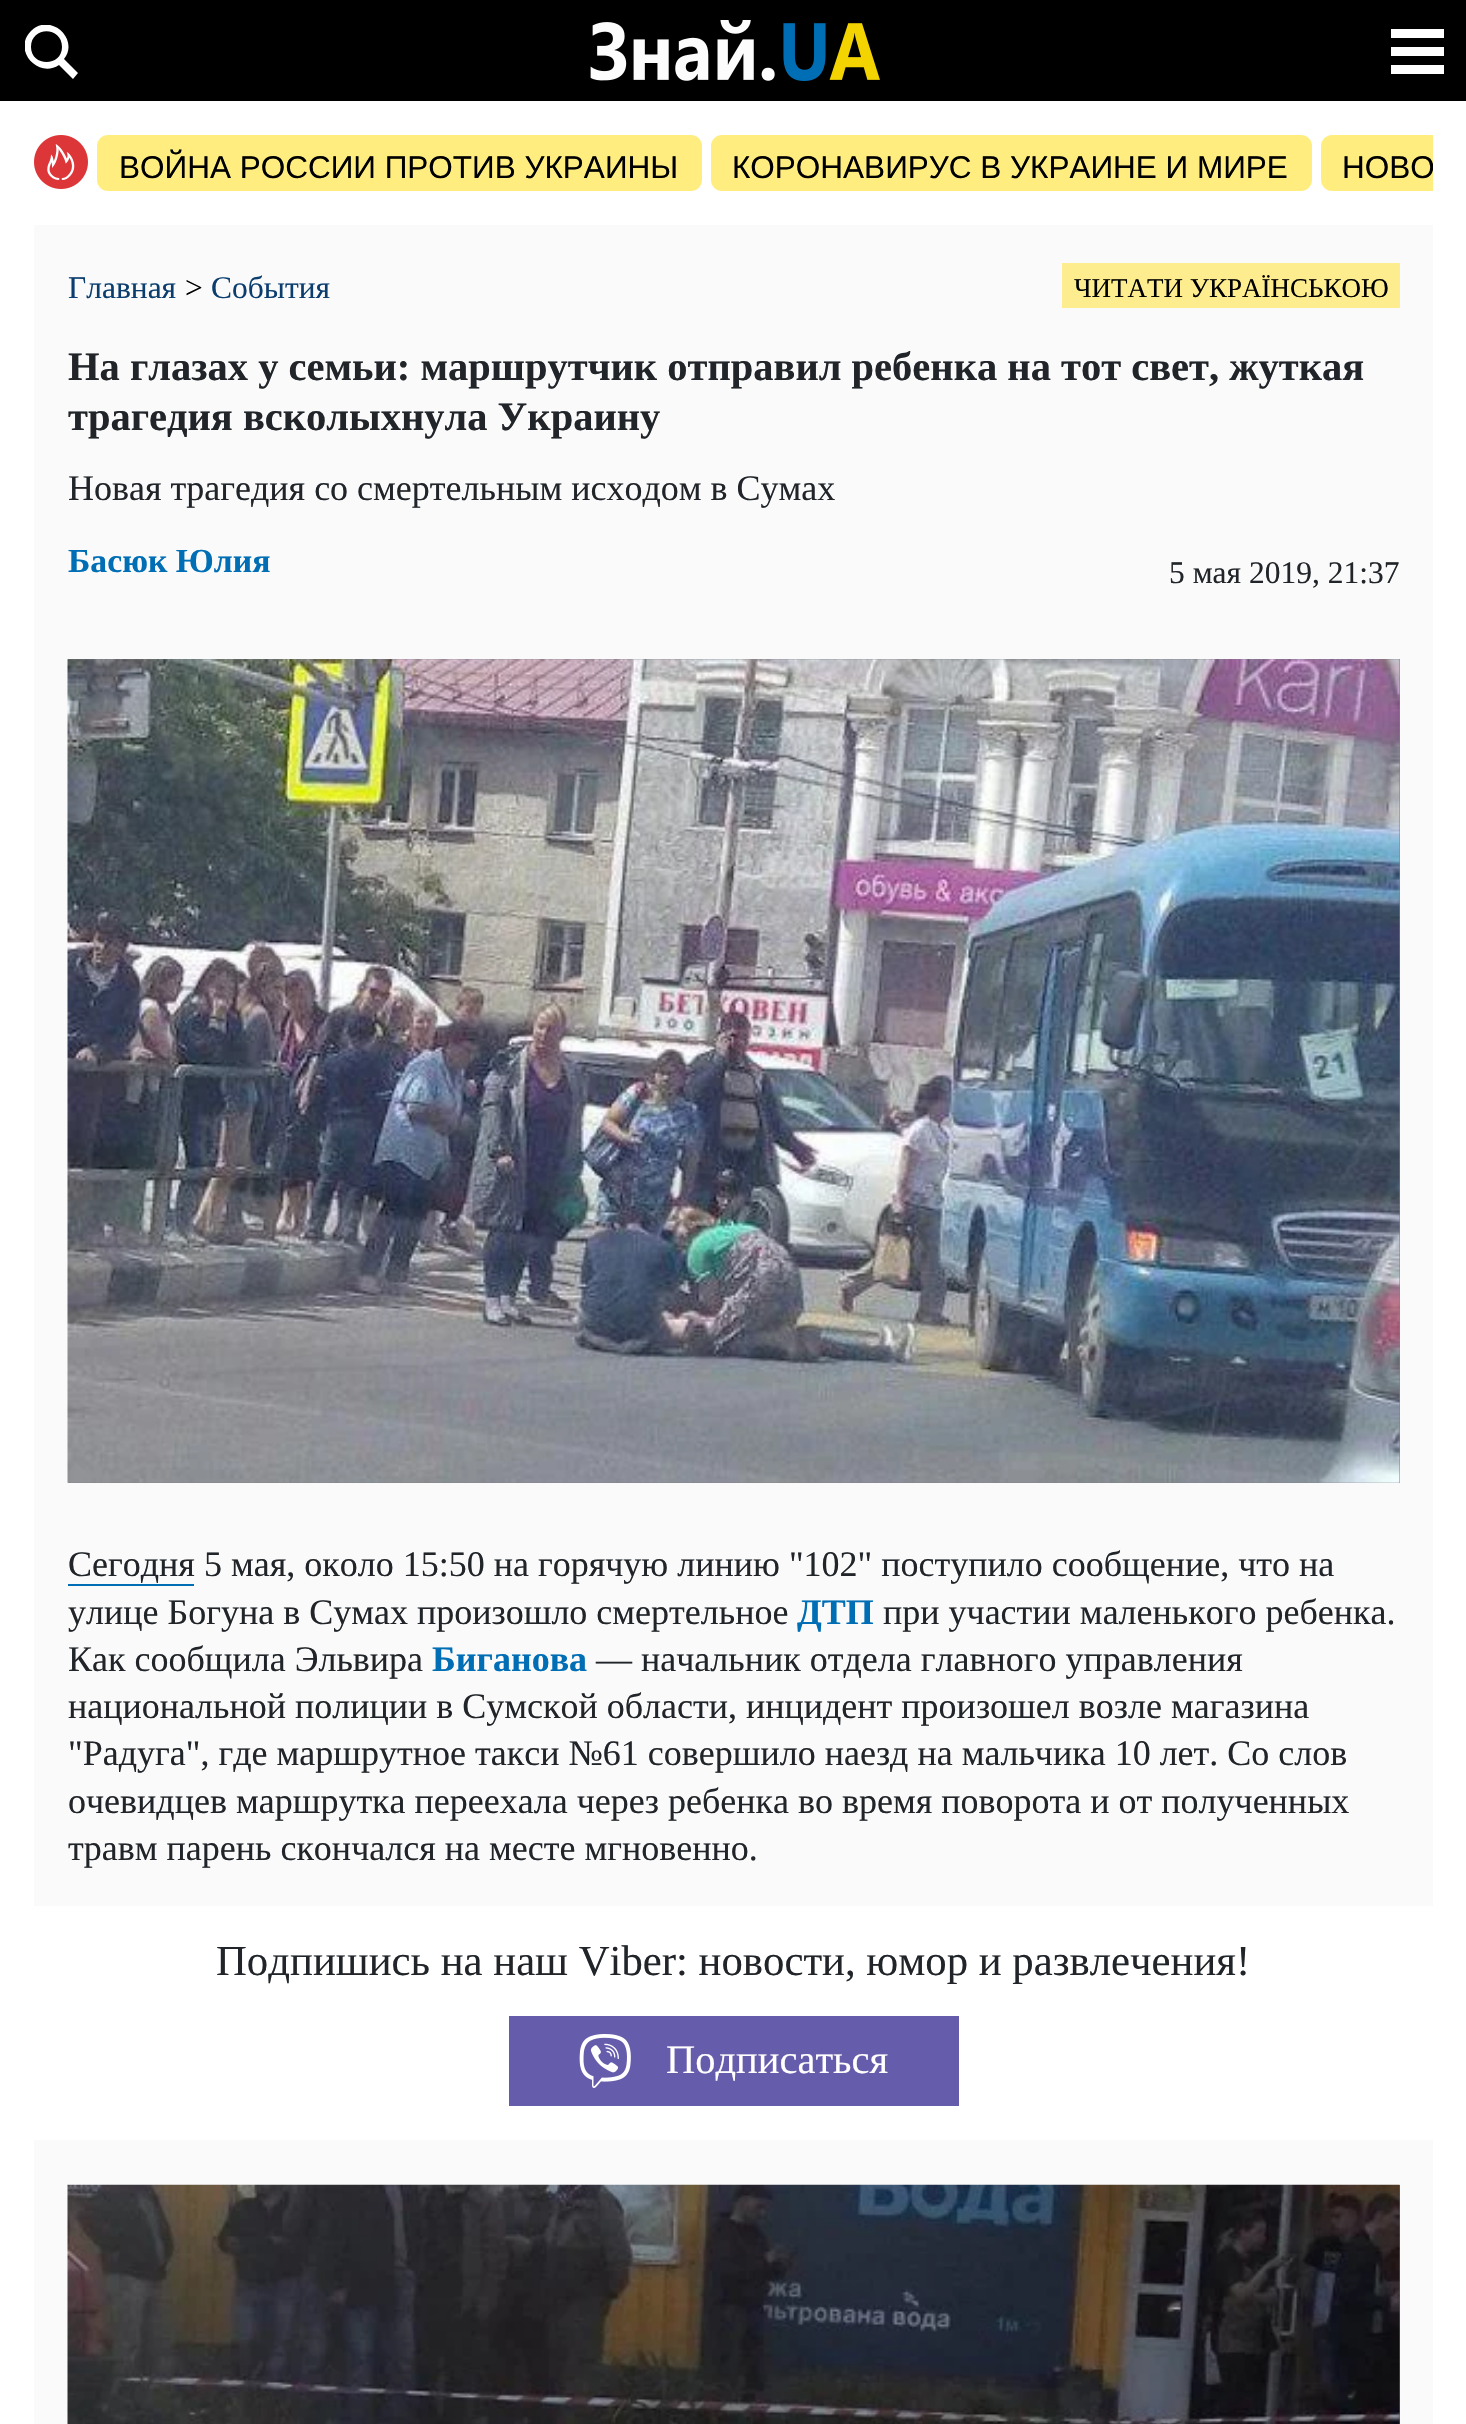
static SkFont makeFont(const char* family, int weight, float size, bool italic = false) {
  SkFontStyle style(weight, SkFontStyle::kNormal_Width,
    italic ? SkFontStyle::kItalic_Slant : SkFontStyle::kUpright_Slant);
  SkFont result(fontMgr->matchFamilyStyle(family, style), size);
  result.setSubpixel(true);
  return result;
}

static void text(SkCanvas* c, const char* s, float x, float y, const SkFont& font, SkColor color) {
  SkPaint ink(SkColor4f::FromColor(color));
  ink.setAntiAlias(true);
  c->drawString(s, x, y, font, ink);
}

static void box(SkCanvas* c, float l, float t, float r, float b, SkColor color) {
  SkPaint ink(SkColor4f::FromColor(color));
  ink.setAntiAlias(true);
  c->drawRect(SkRect::MakeLTRB(l, t, r, b), ink);
}

static void roundBox(SkCanvas* c, float l, float t, float r, float b, float radius, SkColor color) {
  SkPaint ink(SkColor4f::FromColor(color));
  ink.setAntiAlias(true);
  c->drawRoundRect(SkRect::MakeLTRB(l, t, r, b), radius, radius, ink);
}

static void picture(SkCanvas* c, const char* path, float l, float t, float r, float b) {
  auto image = SkImages::DeferredFromEncodedData(SkData::MakeFromFileName(path));
  c->drawImageRect(image, SkRect::MakeLTRB(l, t, r, b), SkSamplingOptions());
}

void draw(SkCanvas* c) {
  SkPaint paint;
  paint.setAntiAlias(true);
  c->clear(0xffffffff);
  box(c, 0, 0, 1466, 101, 0xff000000);
  c->save();
  c->clipRect(SkRect::MakeLTRB(25, 25, 79, 79));
  paint.setColor(0xffffffff);
  c->drawPath(SkPathBuilder().moveTo(78, 73).lineTo(64, 59).cubicTo(80, 39, 50, 12, 31, 31).cubicTo(12, 50, 38, 79, 59, 65).lineTo(73, 79).close().moveTo(31, 47).cubicTo(31, 26, 62, 26, 62, 47).cubicTo(62, 67, 31, 67, 31, 47).close().detach(), paint);
  c->restore();
  picture(c, "img_01.png", 590, 20, 880, 81);
  c->save();
  c->clipRect(SkRect::MakeLTRB(1391, 25, 1445, 79));
  c->drawPath(SkPathBuilder().moveTo(1444, 38).lineTo(1390, 38).lineTo(1390, 29).lineTo(1444, 29).close().moveTo(1444, 47).lineTo(1390, 47).lineTo(1390, 56).lineTo(1444, 56).close().moveTo(1444, 65).lineTo(1390, 65).lineTo(1390, 74).lineTo(1444, 74).close().detach(), paint);
  c->restore();
  picture(c, "img_02.png", 34, 135, 88, 189);
  roundBox(c, 97, 135, 702, 191, 11, 0xffffee7f);
  SkFont face1 = makeFont("Liberation Sans", 400, 31.5f);
  text(c, "ВОЙНА РОССИИ ПРОТИВ УКРАИНЫ", 119, 178, face1, 0xff000000);
  roundBox(c, 711, 135, 1312, 191, 11, 0xffffee7f);
  text(c, "КОРОНАВИРУС В УКРАИНЕ И МИРЕ", 732, 178, face1, 0xff000000);
  paint.setColor(0xffffee7f);
  c->drawPath(SkPathBuilder().moveTo(1332, 135).lineTo(1433, 135).lineTo(1433, 191).lineTo(1332, 191).cubicTo(1326, 191, 1321, 186, 1321, 180).lineTo(1321, 146).cubicTo(1321, 140, 1326, 135, 1332, 135).close().detach(), paint);
  c->save();
  c->clipRect(SkRect::MakeLTRB(88, 135, 1433, 191));
  text(c, "НОВО", 1342, 178, face1, 0xff000000);
  c->restore();
  box(c, 34, 225, 1433, 2424, 0xfffafafa);
  SkFont face2 = makeFont("Liberation Serif", 400, 31.5f);
  text(c, "Главная", 68, 298, face2, 0xff0b3e6f);
  text(c, ">", 185, 298, face2, 0xff000000);
  text(c, "События", 211, 298, face2, 0xff0b3e6f);
  box(c, 1062, 263, 1400, 308, 0xfffded8e);
  SkFont face3 = makeFont("Liberation Serif", 400, 27);
  text(c, "ЧИТАТИ УКРАЇНСЬКОЮ", 1074, 297, face3, 0xff000000);
  SkFont face4 = makeFont("Liberation Serif", 700, 40.5f);
  text(c, "На глазах у семьи: маршрутчик отправил ребенка на тот свет, жуткая", 68, 380, face4, 0xff212529);
  text(c, "трагедия всколыхнула Украину", 68, 430, face4, 0xff212529);
  SkFont face5 = makeFont("Liberation Serif", 400, 36);
  text(c, "Новая трагедия со смертельным исходом в Сумах", 68, 500, face5, 0xff212529);
  SkFont face6 = makeFont("Liberation Serif", 700, 33.75f);
  text(c, "Басюк Юлия", 68, 572, face6, 0xff006eb5);
  text(c, "5 мая 2019, 21:37", 1169, 583, face2, 0xff212529);
  box(c, 68, 659, 1400, 1483, 0xff7a7f89);
  picture(c, "img_03.png", 67, 659, 1400, 1483);
  text(c, "Сегодня 5 мая, около 15:50 на горячую линию \"102\" поступило сообщение, что на", 68, 1576, face5, 0xff212529);
  box(c, 68, 1584, 194, 1586, 0xff006eb5);
  text(c, "улице Богуна в Сумах произошло смертельное", 68, 1624, face5, 0xff212529);
  SkFont face7 = makeFont("Liberation Serif", 700, 36);
  text(c, "ДТП", 797, 1624, face7, 0xff006eb5);
  text(c, "при участии маленького ребенка.", 883, 1624, face5, 0xff212529);
  text(c, "Как сообщила Эльвира", 68, 1671, face5, 0xff212529);
  text(c, "Биганова", 432, 1671, face7, 0xff006eb5);
  text(c, "— начальник отдела главного управления", 596, 1671, face5, 0xff212529);
  text(c, "национальной полиции в Сумской области, инцидент произошел возле магазина", 68, 1718, face5, 0xff212529);
  text(c, "\"Радуга\", где маршрутное такси №61 совершило наезд на мальчика 10 лет. Со слов", 68, 1765, face5, 0xff212529);
  text(c, "очевидцев маршрутка переехала через ребенка во время поворота и от полученных", 68, 1813, face5, 0xff212529);
  text(c, "травм парень скончался на месте мгновенно.", 68, 1860, face5, 0xff212529);
  box(c, 34, 1906, 1433, 2140, 0xffffffff);
  SkFont face8 = makeFont("Liberation Serif", 400, 42.75f);
  text(c, "Подпишись на наш Viber: новости, юмор и развлечения!", 216, 1975, face8, 0xff212529);
  box(c, 509, 2016, 959, 2106, 0xff665cac);
  picture(c, "img_04.png", 579, 2034, 631, 2088);
  SkFont face9 = makeFont("Liberation Serif", 400, 40.5f);
  text(c, "Подписаться", 666, 2073, face9, 0xffffffff);
  box(c, 1399, 2185, 1400, 2424, 0xff646263);
  picture(c, "img_05.png", 67, 2184, 1400, 2424);
}
